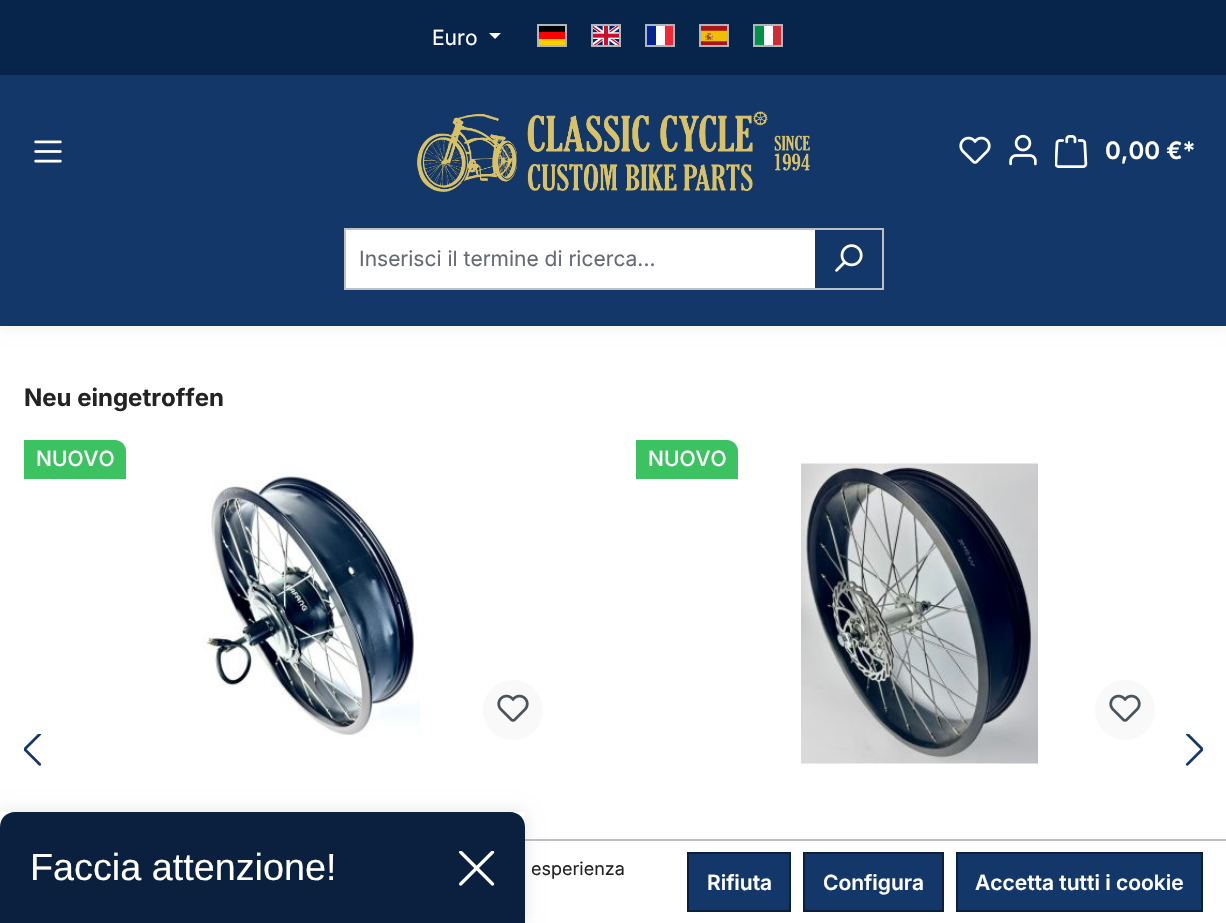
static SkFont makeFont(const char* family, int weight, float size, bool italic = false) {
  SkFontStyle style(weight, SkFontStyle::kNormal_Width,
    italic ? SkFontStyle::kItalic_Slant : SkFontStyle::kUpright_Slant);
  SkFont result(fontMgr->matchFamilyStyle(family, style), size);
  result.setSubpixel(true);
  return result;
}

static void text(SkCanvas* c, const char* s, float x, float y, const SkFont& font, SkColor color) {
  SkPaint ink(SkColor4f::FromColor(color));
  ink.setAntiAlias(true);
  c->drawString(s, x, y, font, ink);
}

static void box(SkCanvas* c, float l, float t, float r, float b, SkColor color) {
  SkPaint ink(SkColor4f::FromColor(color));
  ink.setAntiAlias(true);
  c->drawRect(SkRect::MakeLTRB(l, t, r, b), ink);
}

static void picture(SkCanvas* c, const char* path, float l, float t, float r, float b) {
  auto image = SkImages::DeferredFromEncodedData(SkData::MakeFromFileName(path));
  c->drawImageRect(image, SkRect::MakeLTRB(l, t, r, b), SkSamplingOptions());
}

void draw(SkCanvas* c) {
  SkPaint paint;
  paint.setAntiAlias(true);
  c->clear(0xffffffff);
  box(c, 0, 0, 1226, 75, 0xff07244b);
  SkFont face1 = makeFont("Inter", 400, 21);
  text(c, "Euro", 432, 45, face1, 0xffffffff);
  paint.setColor(0xffffffff);
  c->drawPath(SkPathBuilder().moveTo(489, 33).lineTo(501, 33).lineTo(495, 39).close().detach(), paint);
  box(c, 539, 26, 566, 32, 0xff000000);
  box(c, 539, 32, 566, 39, 0xffff0000);
  box(c, 539, 39, 566, 45, 0xffffcc00);
  paint.setStyle(SkPaint::kStroke_Style);
  paint.setStrokeWidth(2);
  paint.setColor(0xffadb5bd);
  c->drawRect(SkRect::MakeLTRB(538, 25, 566, 46), paint);
  picture(c, "img_01.png", 593, 26, 619, 45);
  c->drawRect(SkRect::MakeLTRB(592, 25, 620, 46), paint);
  box(c, 647, 26, 656, 45, 0xff002395);
  box(c, 656, 26, 665, 45, 0xffffffff);
  box(c, 665, 26, 673, 45, 0xffed2939);
  c->drawRect(SkRect::MakeLTRB(646, 25, 674, 46), paint);
  picture(c, "img_02.png", 701, 26, 727, 45);
  c->drawRect(SkRect::MakeLTRB(700, 25, 728, 46), paint);
  box(c, 755, 26, 764, 45, 0xff009246);
  box(c, 764, 26, 773, 45, 0xffffffff);
  box(c, 773, 26, 781, 45, 0xffce2b37);
  c->drawRect(SkRect::MakeLTRB(754, 25, 782, 46), paint);
  paint.setStyle(SkPaint::kFill_Style);
  paint.setColor(0x12000000);
  paint.setMaskFilter(SkMaskFilter::MakeBlur(kNormal_SkBlurStyle, 7.5f));
  c->drawRect(SkRect::MakeLTRB(0, 75, 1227, 326), paint);
  paint.setMaskFilter(nullptr);
  box(c, 0, 75, 1226, 326, 0xff133769);
  picture(c, "img_03.png", 34, 140, 62, 163);
  picture(c, "img_04.png", 417, 111, 810, 192);
  picture(c, "img_05.png", 959, 136, 991, 164);
  picture(c, "img_06.png", 1009, 134, 1037, 166);
  picture(c, "img_07.png", 1055, 135, 1088, 168);
  SkFont face2 = makeFont("Inter", 600, 24);
  text(c, "0,00 €*", 1105, 159, face2, 0xffffffff);
  box(c, 346, 230, 815, 288, 0xffffffff);
  box(c, 344, 228, 884, 230, 0xffbcc1c7);
  box(c, 344, 288, 815, 290, 0xffbcc1c7);
  box(c, 344, 228, 346, 290, 0xffbcc1c7);
  text(c, "Inserisci il termine di ricerca...", 359, 266, face1, 0xff666977);
  box(c, 882, 228, 884, 290, 0xffbcc1c7);
  box(c, 813, 288, 884, 290, 0xffbcc1c7);
  picture(c, "img_08.png", 835, 244, 863, 272);
  SkFont face3 = makeFont("Inter", 700, 24);
  text(c, "Neu eingetroffen", 24, 406, face3, 0xff232323);
  paint.setColor(0xff3cc261);
  c->drawPath(SkPathBuilder().moveTo(24, 440).lineTo(115, 440).cubicTo(121, 440, 126, 445, 126, 451).lineTo(126, 479).lineTo(24, 479).close().detach(), paint);
  SkFont face4 = makeFont("Inter", 500, 21);
  text(c, "NUOVO", 36, 466, face4, 0xffffffff);
  picture(c, "img_09.png", 203, 472, 420, 737);
  paint.setColor(0xfff9f9f9);
  c->drawCircle(513, 710, 30, paint);
  picture(c, "img_10.png", 497, 694, 529, 722);
  paint.setColor(0xff3cc261);
  c->drawPath(SkPathBuilder().moveTo(636, 440).lineTo(727, 440).cubicTo(733, 440, 738, 445, 738, 451).lineTo(738, 479).lineTo(636, 479).close().detach(), paint);
  text(c, "NUOVO", 648, 466, face4, 0xffffffff);
  picture(c, "img_11.png", 801, 463, 1038, 764);
  paint.setColor(0xfff9f9f9);
  c->drawCircle(1125, 710, 30, paint);
  picture(c, "img_10.png", 1109, 694, 1141, 722);
  picture(c, "img_12.png", 24, 734, 42, 766);
  picture(c, "img_13.png", 1185, 734, 1203, 766);
  box(c, 525, 839, 1226, 841, 0xffbcc1c7);
  c->save();
  c->clipPath(SkPathBuilder(SkPathFillType::kEvenOdd).moveTo(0, 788).lineTo(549, 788).lineTo(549, 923).lineTo(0, 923).close().moveTo(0, 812).lineTo(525, 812).lineTo(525, 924).lineTo(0, 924).close().detach(), true);
  paint.setColor(0x1a000000);
  paint.setMaskFilter(SkMaskFilter::MakeBlur(kNormal_SkBlurStyle, 7.5f));
  c->drawRect(SkRect::MakeLTRB(0, 812, 525, 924), paint);
  paint.setMaskFilter(nullptr);
  c->restore();
  paint.setColor(0xff0b203e);
  c->drawPath(SkPathBuilder().moveTo(15, 812).lineTo(510, 812).cubicTo(518.5f, 812, 525, 818.5f, 525, 827).lineTo(525, 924).lineTo(0, 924).lineTo(0, 827).cubicTo(0, 818.5f, 6.5f, 812, 15, 812).close().detach(), paint);
  SkFont face5 = makeFont("Liberation Sans", 400, 37.75f);
  text(c, "Faccia attenzione!", 30, 880, face5, 0xffffffff);
  picture(c, "img_14.png", 459, 851, 495, 886);
  SkFont face6 = makeFont("Inter", 400, 18);
  text(c, "esperienza", 531, 875, face6, 0xff232323);
  paint.setColor(0xff133769);
  c->drawRect(SkRect::MakeLTRB(688, 853, 790, 911), paint);
  paint.setStyle(SkPaint::kStroke_Style);
  paint.setColor(0xff0b203e);
  c->drawRect(SkRect::MakeLTRB(688, 853, 790, 911), paint);
  SkFont face7 = makeFont("Inter", 600, 21);
  text(c, "Rifiuta", 707, 890, face7, 0xffffffff);
  paint.setStyle(SkPaint::kFill_Style);
  paint.setColor(0xff133769);
  c->drawRect(SkRect::MakeLTRB(804, 853, 943, 911), paint);
  paint.setStyle(SkPaint::kStroke_Style);
  paint.setColor(0xff0b203e);
  c->drawRect(SkRect::MakeLTRB(804, 853, 943, 911), paint);
  text(c, "Configura", 823, 890, face7, 0xffffffff);
  paint.setStyle(SkPaint::kFill_Style);
  paint.setColor(0xff133769);
  c->drawRect(SkRect::MakeLTRB(957, 853, 1202, 911), paint);
  paint.setStyle(SkPaint::kStroke_Style);
  paint.setColor(0xff0b203e);
  c->drawRect(SkRect::MakeLTRB(957, 853, 1202, 911), paint);
  text(c, "Accetta tutti i cookie", 975, 890, face7, 0xffffffff);
}
